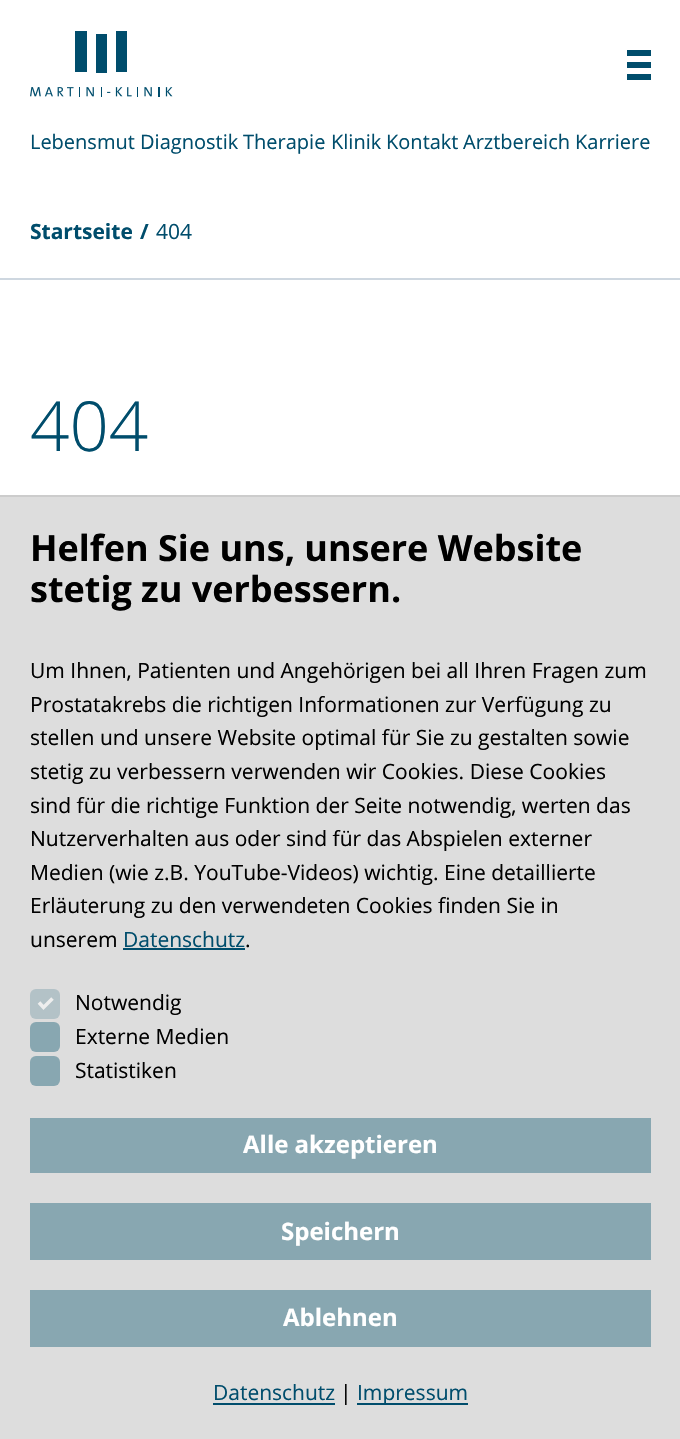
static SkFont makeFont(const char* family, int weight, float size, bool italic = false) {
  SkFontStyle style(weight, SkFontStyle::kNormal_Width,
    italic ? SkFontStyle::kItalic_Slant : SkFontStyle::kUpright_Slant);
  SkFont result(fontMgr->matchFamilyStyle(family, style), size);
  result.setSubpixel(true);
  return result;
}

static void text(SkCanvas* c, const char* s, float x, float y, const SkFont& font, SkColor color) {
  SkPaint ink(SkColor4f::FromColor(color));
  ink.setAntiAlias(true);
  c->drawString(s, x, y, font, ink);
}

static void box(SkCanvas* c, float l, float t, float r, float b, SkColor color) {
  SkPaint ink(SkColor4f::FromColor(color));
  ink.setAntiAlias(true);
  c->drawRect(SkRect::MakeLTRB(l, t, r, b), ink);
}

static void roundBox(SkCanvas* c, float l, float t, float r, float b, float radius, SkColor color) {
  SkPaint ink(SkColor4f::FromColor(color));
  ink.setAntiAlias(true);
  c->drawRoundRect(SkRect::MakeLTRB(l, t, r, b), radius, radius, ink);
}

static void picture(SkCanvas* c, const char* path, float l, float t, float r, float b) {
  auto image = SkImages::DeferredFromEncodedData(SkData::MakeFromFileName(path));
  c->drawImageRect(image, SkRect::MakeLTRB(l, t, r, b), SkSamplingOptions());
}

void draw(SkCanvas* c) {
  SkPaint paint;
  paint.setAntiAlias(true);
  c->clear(0xffffffff);
  picture(c, "img_01.png", 30, 31, 173, 97);
  box(c, 627, 50, 651, 56, 0xff004d6c);
  box(c, 627, 62, 651, 68, 0xff004d6c);
  box(c, 627, 74, 651, 80, 0xff004d6c);
  SkFont face1 = makeFont("Open Sans", 400, 20);
  text(c, "Lebensmut", 30, 149, face1, 0xff004d6c);
  text(c, "Diagnostik", 140, 149, face1, 0xff004d6c);
  text(c, "Therapie", 243, 149, face1, 0xff004d6c);
  text(c, "Klinik", 331, 149, face1, 0xff004d6c);
  text(c, "Kontakt", 386, 149, face1, 0xff004d6c);
  text(c, "Arztbereich", 463, 149, face1, 0xff004d6c);
  text(c, "Karriere", 575, 149, face1, 0xff004d6c);
  box(c, 0, 278, 680, 280, 0xffced7e0);
  SkFont face2 = makeFont("Open Sans", 700, 21);
  text(c, "Startseite", 30, 239, face2, 0xff004d6c);
  text(c, "/", 140, 239, face2, 0xff004d6c);
  SkFont face3 = makeFont("Open Sans", 400, 21);
  text(c, "404", 156, 239, face3, 0xff004d6c);
  SkFont face4 = makeFont("Open Sans", 300, 69);
  text(c, "404", 30, 451, face4, 0xff004d6c);
  box(c, 0, 497, 680, 1439, 0xffdddddd);
  box(c, 0, 495, 680, 497, 0xffcccccc);
  SkFont face5 = makeFont("Open Sans", 700, 36);
  text(c, "Helfen Sie uns, unsere Website", 30, 561, face5, 0xff000000);
  text(c, "stetig zu verbessern.", 30, 602, face5, 0xff000000);
  text(c, "Um Ihnen, Patienten und Angehörigen bei all Ihren Fragen zum", 30, 678, face3, 0xff000000);
  text(c, "Prostatakrebs die richtigen Informationen zur Verfügung zu", 30, 712, face3, 0xff000000);
  text(c, "stellen und unsere Website optimal für Sie zu gestalten sowie", 30, 745, face3, 0xff000000);
  text(c, "stetig zu verbessern verwenden wir Cookies. Diese Cookies", 30, 779, face3, 0xff000000);
  text(c, "sind für die richtige Funktion der Seite notwendig, werten das", 30, 813, face3, 0xff000000);
  text(c, "Nutzerverhalten aus oder sind für das Abspielen externer", 30, 846, face3, 0xff000000);
  text(c, "Medien (wie z.B. YouTube-Videos) wichtig. Eine detaillierte", 30, 880, face3, 0xff000000);
  text(c, "Erläuterung zu den verwendeten Cookies finden Sie in", 30, 913, face3, 0xff000000);
  text(c, "unserem", 30, 947, face3, 0xff000000);
  text(c, "Datenschutz", 123, 947, face3, 0xff004d6c);
  box(c, 123, 948, 245, 950, 0xff004d6c);
  text(c, ".", 245, 947, face3, 0xff000000);
  roundBox(c, 30, 989, 60, 1019, 6, 0xffb3c2c7);
  paint.setStyle(SkPaint::kStroke_Style);
  paint.setStrokeWidth(3.6f);
  paint.setColor(0xffeeeeee);
  c->drawPath(SkPathBuilder().moveTo(39, 1002.5f).lineTo(43.5f, 1007.5f).lineTo(52.5f, 998.5f).detach(), paint);
  text(c, "Notwendig", 75, 1010, face3, 0xff000000);
  roundBox(c, 30, 1022, 60, 1052, 6, 0xff88a7b1);
  text(c, "Externe Medien", 75, 1044, face3, 0xff000000);
  roundBox(c, 30, 1056, 60, 1086, 6, 0xff88a7b1);
  text(c, "Statistiken", 75, 1078, face3, 0xff000000);
  box(c, 30, 1118, 651, 1173, 0xff88a7b1);
  SkFont face6 = makeFont("Open Sans", 700, 24);
  text(c, "Alle akzeptieren", 243, 1153, face6, 0xffffffff);
  box(c, 30, 1203, 651, 1260, 0xff88a7b1);
  text(c, "Speichern", 281, 1240, face6, 0xffffffff);
  box(c, 30, 1290, 651, 1347, 0xff88a7b1);
  text(c, "Ablehnen", 283, 1326, face6, 0xffffffff);
  text(c, "Datenschutz", 213, 1400, face3, 0xff004d6c);
  box(c, 213, 1403, 335, 1405, 0xff004d6c);
  text(c, "|", 340, 1400, face3, 0xff000000);
  box(c, 357, 1403, 468, 1405, 0xff004d6c);
  text(c, "Impressum", 357, 1400, face3, 0xff004d6c);
}
